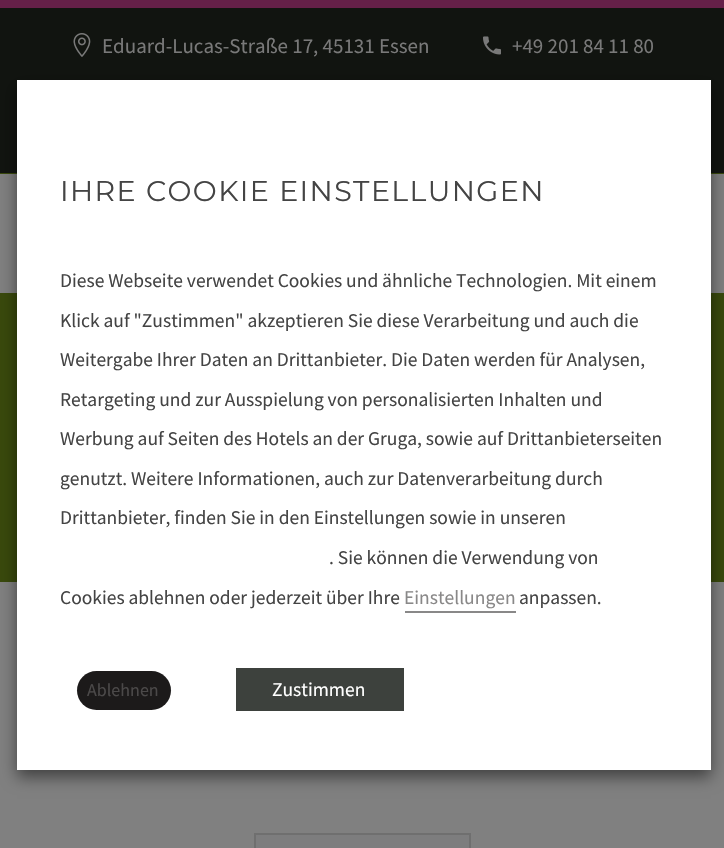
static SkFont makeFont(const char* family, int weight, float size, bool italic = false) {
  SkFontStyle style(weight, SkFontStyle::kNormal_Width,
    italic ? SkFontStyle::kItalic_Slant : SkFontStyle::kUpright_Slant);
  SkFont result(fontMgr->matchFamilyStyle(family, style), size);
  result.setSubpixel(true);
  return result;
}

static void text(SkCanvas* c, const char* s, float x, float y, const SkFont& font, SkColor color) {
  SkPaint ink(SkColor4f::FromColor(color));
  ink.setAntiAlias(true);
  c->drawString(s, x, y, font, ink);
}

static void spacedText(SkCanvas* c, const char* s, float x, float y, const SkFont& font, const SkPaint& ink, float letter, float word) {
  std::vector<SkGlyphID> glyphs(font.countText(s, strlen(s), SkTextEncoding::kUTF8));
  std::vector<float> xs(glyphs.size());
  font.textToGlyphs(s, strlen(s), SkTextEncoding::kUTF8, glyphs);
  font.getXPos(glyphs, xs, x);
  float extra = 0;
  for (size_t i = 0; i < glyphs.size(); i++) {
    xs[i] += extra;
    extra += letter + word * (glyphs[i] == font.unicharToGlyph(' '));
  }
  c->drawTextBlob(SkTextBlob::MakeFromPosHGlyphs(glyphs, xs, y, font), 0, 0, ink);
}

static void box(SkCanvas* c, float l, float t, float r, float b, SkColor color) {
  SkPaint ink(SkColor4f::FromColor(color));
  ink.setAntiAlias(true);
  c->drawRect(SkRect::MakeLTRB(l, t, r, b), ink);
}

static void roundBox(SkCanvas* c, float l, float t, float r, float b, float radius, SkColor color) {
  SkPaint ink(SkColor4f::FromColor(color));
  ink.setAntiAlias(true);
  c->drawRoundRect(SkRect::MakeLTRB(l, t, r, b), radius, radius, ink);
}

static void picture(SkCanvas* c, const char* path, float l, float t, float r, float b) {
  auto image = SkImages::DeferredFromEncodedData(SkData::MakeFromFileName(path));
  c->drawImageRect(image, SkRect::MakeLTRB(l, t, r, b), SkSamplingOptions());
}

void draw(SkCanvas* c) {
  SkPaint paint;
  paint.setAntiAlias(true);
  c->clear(0xff808080);
  box(c, 0, 8, 724, 173, 0xff111410);
  box(c, 0, 0, 724, 8, 0xff652048);
  box(c, 0, 173, 724, 174, 0xff39490c);
  picture(c, "img_01.png", 73, 33, 91, 57);
  SkFont face1 = makeFont("Source Sans Pro", 400, 21);
  text(c, "Eduard-Lucas-Straße 17, 45131 Essen", 102, 53, face1, 0xff797979);
  picture(c, "img_02.png", 483, 36, 501, 55);
  text(c, "+49 201 84 11 80", 512, 53, face1, 0xff797979);
  box(c, 0, 293, 724, 582, 0xff39490c);
  paint.setColor(0xff7d7d7e);
  c->drawRect(SkRect::MakeLTRB(255, 834, 470, 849), paint);
  paint.setStyle(SkPaint::kStroke_Style);
  paint.setStrokeWidth(2);
  paint.setColor(0xff6f6f6f);
  c->drawRect(SkRect::MakeLTRB(255, 834, 470, 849), paint);
  paint.setStyle(SkPaint::kFill_Style);
  paint.setColor(0x80000000);
  paint.setMaskFilter(SkMaskFilter::MakeBlur(kNormal_SkBlurStyle, 7.5f));
  c->drawRect(SkRect::MakeLTRB(17, 87, 711, 777), paint);
  paint.setMaskFilter(nullptr);
  box(c, 17, 80, 711, 770, 0xffffffff);
  SkFont face2 = makeFont("Montserrat", 400, 28.5f);
  paint.setColor(0xff444444);
  spacedText(c, "IHRE COOKIE EINSTELLUNGEN", 60, 201, face2, paint, 1.4f, 0);
  SkFont face3 = makeFont("Source Sans Pro", 400, 19.5f);
  text(c, "Diese Webseite verwendet Cookies und ähnliche Technologien. Mit einem", 60, 287, face3, 0xff444444);
  text(c, "Klick auf \"Zustimmen\" akzeptieren Sie diese Verarbeitung und auch die", 60, 327, face3, 0xff444444);
  text(c, "Weitergabe Ihrer Daten an Drittanbieter. Die Daten werden für Analysen,", 60, 366, face3, 0xff444444);
  text(c, "Retargeting und zur Ausspielung von personalisierten Inhalten und", 60, 406, face3, 0xff444444);
  text(c, "Werbung auf Seiten des Hotels an der Gruga, sowie auf Drittanbieterseiten", 60, 445, face3, 0xff444444);
  text(c, "genutzt. Weitere Informationen, auch zur Datenverarbeitung durch", 60, 485, face3, 0xff444444);
  text(c, "Drittanbieter, finden Sie in den Einstellungen sowie in unseren", 60, 524, face3, 0xff444444);
  text(c, ". Sie können die Verwendung von", 329, 564, face3, 0xff444444);
  text(c, "Cookies ablehnen oder jederzeit über Ihre", 60, 604, face3, 0xff444444);
  text(c, "Einstellungen", 404, 604, face3, 0xff898888);
  box(c, 405, 611, 516, 613, 0xff898888);
  text(c, "anpassen.", 519, 604, face3, 0xff444444);
  roundBox(c, 77, 671, 171, 710, 19.5f, 0xff1c1a1a);
  SkFont face4 = makeFont("Source Sans Pro", 400, 18);
  text(c, "Ablehnen", 87, 696, face4, 0xff4b4949);
  box(c, 236, 668, 404, 711, 0xff3d413d);
  text(c, "Zustimmen", 272, 696, face3, 0xffffffff);
}
